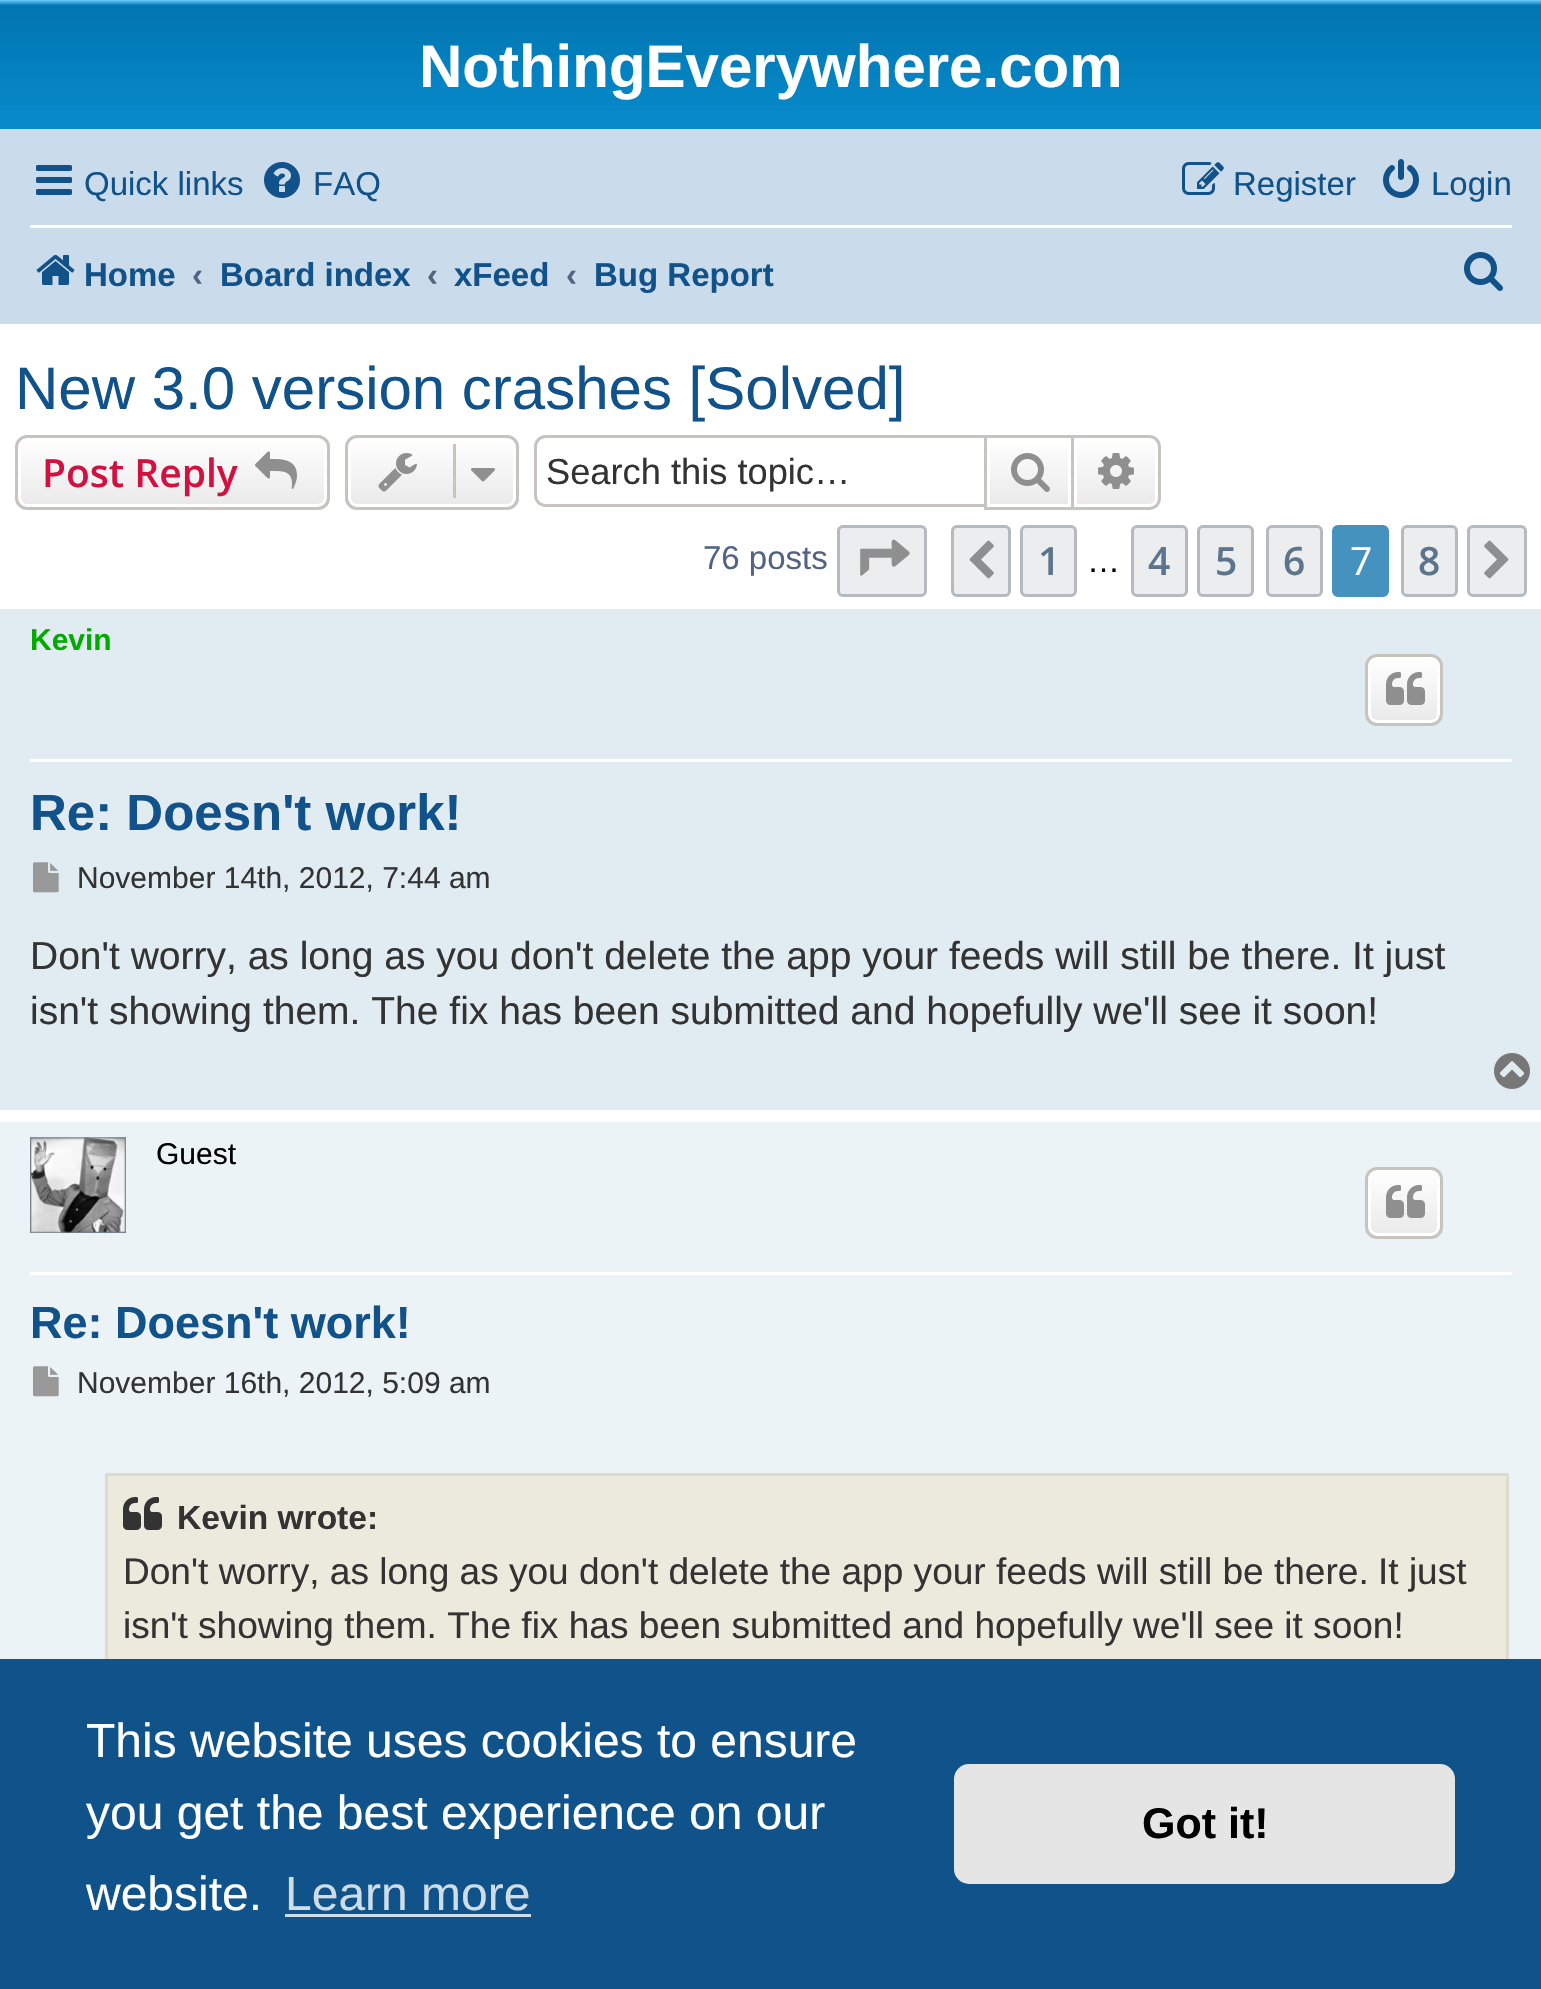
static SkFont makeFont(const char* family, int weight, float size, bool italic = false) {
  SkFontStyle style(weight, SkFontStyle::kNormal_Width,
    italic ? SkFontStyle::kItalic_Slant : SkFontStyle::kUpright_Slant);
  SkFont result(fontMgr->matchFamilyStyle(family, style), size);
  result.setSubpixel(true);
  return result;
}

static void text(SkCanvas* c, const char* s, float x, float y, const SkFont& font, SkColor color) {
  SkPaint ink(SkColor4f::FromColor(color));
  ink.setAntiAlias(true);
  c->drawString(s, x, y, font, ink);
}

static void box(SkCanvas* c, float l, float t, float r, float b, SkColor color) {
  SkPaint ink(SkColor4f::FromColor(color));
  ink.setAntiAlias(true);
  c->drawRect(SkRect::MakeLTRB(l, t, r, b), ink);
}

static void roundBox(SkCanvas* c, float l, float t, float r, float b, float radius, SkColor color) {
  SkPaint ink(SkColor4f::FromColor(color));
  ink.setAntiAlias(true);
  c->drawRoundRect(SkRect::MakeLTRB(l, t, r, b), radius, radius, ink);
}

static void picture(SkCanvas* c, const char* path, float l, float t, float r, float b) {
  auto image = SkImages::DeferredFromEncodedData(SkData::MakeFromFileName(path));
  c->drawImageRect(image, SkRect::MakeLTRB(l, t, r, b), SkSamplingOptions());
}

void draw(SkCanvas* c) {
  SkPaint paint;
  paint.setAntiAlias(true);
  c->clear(0xffffffff);
  {
    const SkColor colors[] = {0xff6aceff, 0xff0076b1, 0xff12a3eb};
    const float stops[] = {0, 0.02f, 1};
    const SkPoint ends[] = {{771, 0}, {771, 276}};
    paint.setShader(SkGradientShader::MakeLinear(ends, colors, stops, 3, SkTileMode::kClamp));
    paint.setAlpha(255);
  }
  c->drawRect(SkRect::MakeLTRB(0, 0, 1541, 129), paint);
  SkFont face1 = makeFont("Liberation Sans", 700, 60);
  text(c, "NothingEverywhere.com", 419, 87, face1, 0xffffffff);
  box(c, 0, 129, 1541, 324, 0xffcadceb);
  picture(c, "img_01.png", 36, 165, 72, 195);
  SkFont face2 = makeFont("Liberation Sans", 400, 33);
  text(c, "Quick links", 84, 195, face2, 0xff105289);
  picture(c, "img_02.png", 264, 162, 300, 198);
  text(c, "FAQ", 313, 195, face2, 0xff105289);
  picture(c, "img_03.png", 1182, 162, 1224, 195);
  text(c, "Register", 1233, 195, face2, 0xff105289);
  picture(c, "img_04.png", 1383, 159, 1419, 198);
  text(c, "Login", 1431, 195, face2, 0xff105289);
  box(c, 30, 225, 1512, 228, 0xffffffff);
  picture(c, "img_05.png", 36, 254, 75, 285);
  SkFont face3 = makeFont("Liberation Sans", 700, 33);
  text(c, "Home", 84, 286, face3, 0xff105289);
  text(c, "‹", 192, 286, face3, 0xff536482);
  text(c, "Board index", 220, 286, face3, 0xff105289);
  text(c, "‹", 427, 286, face3, 0xff536482);
  text(c, "xFeed", 454, 286, face3, 0xff105289);
  text(c, "‹", 566, 286, face3, 0xff536482);
  text(c, "Bug Report", 594, 286, face3, 0xff105289);
  picture(c, "img_06.png", 1464, 252, 1503, 291);
  SkFont face4 = makeFont("Liberation Sans", 400, 60);
  text(c, "New 3.0 version crashes [Solved]", 15, 409, face4, 0xff105289);
  c->save();
  c->clipPath(SkPathBuilder().moveTo(27, 435).lineTo(318, 435).cubicTo(324.5f, 435, 330, 440.5f, 330, 447).lineTo(330, 498).cubicTo(330, 504.5f, 324.5f, 510, 318, 510).lineTo(27, 510).cubicTo(20.5f, 510, 15, 504.5f, 15, 498).lineTo(15, 447).cubicTo(15, 440.5f, 20.5f, 435, 27, 435).close().detach(), true);
  {
    const SkColor colors[] = {0xffffffff, 0xffe9e9e9};
    const float stops[] = {0, 1};
    const SkPoint ends[] = {{173, 438}, {173, 507}};
    paint.setShader(SkGradientShader::MakeLinear(ends, colors, stops, 2, SkTileMode::kClamp));
    paint.setAlpha(255);
  }
  c->drawRect(SkRect::MakeLTRB(15, 438, 330, 507), paint);
  c->restore();
  paint.setStyle(SkPaint::kStroke_Style);
  paint.setStrokeWidth(3);
  paint.setShader(nullptr);
  paint.setColor(0xffffffff);
  c->drawRoundRect(SkRect::MakeLTRB(19.5f, 439.5f, 325.5f, 505.5f), 7.5f, 7.5f, paint);
  paint.setColor(0xffc7c3bf);
  c->drawRoundRect(SkRect::MakeLTRB(16.5f, 436.5f, 328.5f, 508.5f), 10.5f, 10.5f, paint);
  SkFont face5 = makeFont("Open Sans", 600, 39);
  text(c, "Post Reply", 42, 487, face5, 0xffd31141);
  picture(c, "img_07.png", 255, 451, 297, 489);
  c->save();
  c->clipPath(SkPathBuilder().moveTo(357, 435).lineTo(507, 435).cubicTo(513.5f, 435, 519, 440.5f, 519, 447).lineTo(519, 498).cubicTo(519, 504.5f, 513.5f, 510, 507, 510).lineTo(357, 510).cubicTo(350.5f, 510, 345, 504.5f, 345, 498).lineTo(345, 447).cubicTo(345, 440.5f, 350.5f, 435, 357, 435).close().detach(), true);
  paint.setStyle(SkPaint::kFill_Style);
  {
    const SkColor colors[] = {0xffffffff, 0xffe9e9e9};
    const float stops[] = {0, 1};
    const SkPoint ends[] = {{432, 438}, {432, 507}};
    paint.setShader(SkGradientShader::MakeLinear(ends, colors, stops, 2, SkTileMode::kClamp));
    paint.setAlpha(255);
  }
  c->drawRect(SkRect::MakeLTRB(345, 438, 519, 507), paint);
  c->restore();
  paint.setStyle(SkPaint::kStroke_Style);
  paint.setShader(nullptr);
  paint.setColor(0xffffffff);
  c->drawRoundRect(SkRect::MakeLTRB(349.5f, 439.5f, 514.5f, 505.5f), 7.5f, 7.5f, paint);
  paint.setColor(0xffc7c3bf);
  c->drawRoundRect(SkRect::MakeLTRB(346.5f, 436.5f, 517.5f, 508.5f), 10.5f, 10.5f, paint);
  picture(c, "img_08.png", 378, 453, 417, 492);
  box(c, 453, 444, 456, 498, 0xffc7c3bf);
  picture(c, "img_09.png", 471, 468, 495, 482);
  paint.setStyle(SkPaint::kFill_Style);
  c->drawPath(SkPathBuilder(SkPathFillType::kEvenOdd).moveTo(546, 435).lineTo(984, 435).lineTo(984, 507).lineTo(546, 507).cubicTo(539, 507, 534, 502, 534, 495).lineTo(534, 447).cubicTo(534, 440, 539, 435, 546, 435).close().moveTo(546, 438).lineTo(984, 438).lineTo(984, 504).lineTo(546, 504).cubicTo(541, 504, 537, 500, 537, 495).lineTo(537, 447).cubicTo(537, 442, 541, 438, 546, 438).close().detach(), paint);
  SkFont face6 = makeFont("Liberation Sans", 400, 36.25f);
  text(c, "Search this topic…", 546, 484, face6, 0xff333333);
  {
    const SkColor colors[] = {0xffffffff, 0xffe9e9e9};
    const float stops[] = {0, 1};
    const SkPoint ends[] = {{1029, 438}, {1029, 507}};
    paint.setShader(SkGradientShader::MakeLinear(ends, colors, stops, 2, SkTileMode::kClamp));
    paint.setAlpha(255);
  }
  c->drawRect(SkRect::MakeLTRB(990, 446, 1068, 504), paint);
  paint.setStyle(SkPaint::kStroke_Style);
  paint.setShader(nullptr);
  paint.setColor(0xffc7c3bf);
  c->drawRect(SkRect::MakeLTRB(985.5f, 436.5f, 1072.5f, 508.5f), paint);
  picture(c, "img_10.png", 1011, 453, 1050, 492);
  paint.setStyle(SkPaint::kFill_Style);
  {
    const SkColor colors[] = {0xffffffff, 0xffe9e9e9};
    const float stops[] = {0, 1};
    const SkPoint ends[] = {{1116, 438}, {1116, 507}};
    paint.setShader(SkGradientShader::MakeLinear(ends, colors, stops, 2, SkTileMode::kClamp));
    paint.setAlpha(255);
  }
  c->drawPath(SkPathBuilder().moveTo(1075.5f, 439.5f).lineTo(1149, 439.5f).cubicTo(1153, 439.5f, 1156.5f, 443, 1156.5f, 447).lineTo(1156.5f, 498).cubicTo(1156.5f, 502, 1153, 505.5f, 1149, 505.5f).lineTo(1075.5f, 505.5f).close().detach(), paint);
  paint.setStyle(SkPaint::kStroke_Style);
  paint.setShader(nullptr);
  paint.setColor(0xffffffff);
  c->drawPath(SkPathBuilder().moveTo(1075.5f, 439.5f).lineTo(1149, 439.5f).cubicTo(1153, 439.5f, 1156.5f, 443, 1156.5f, 447).lineTo(1156.5f, 498).cubicTo(1156.5f, 502, 1153, 505.5f, 1149, 505.5f).lineTo(1075.5f, 505.5f).close().detach(), paint);
  paint.setStyle(SkPaint::kFill_Style);
  paint.setColor(0xffc7c3bf);
  c->drawPath(SkPathBuilder(SkPathFillType::kEvenOdd).moveTo(1074, 435).lineTo(1149, 435).cubicTo(1156, 435, 1161, 440, 1161, 447).lineTo(1161, 498).cubicTo(1161, 505, 1156, 510, 1149, 510).lineTo(1074, 510).close().moveTo(1074, 438).lineTo(1149, 438).cubicTo(1154, 438, 1158, 442, 1158, 447).lineTo(1158, 498).cubicTo(1158, 503, 1154, 507, 1149, 507).lineTo(1074, 507).close().detach(), paint);
  picture(c, "img_11.png", 1098, 453, 1134, 489);
  text(c, "76 posts", 703, 569, face2, 0xff536482);
  paint.setColor(0xffecedee);
  c->drawRoundRect(SkRect::MakeLTRB(838.5f, 526.5f, 925.5f, 595.5f), 4.5f, 4.5f, paint);
  paint.setStyle(SkPaint::kStroke_Style);
  paint.setColor(0xffb4bac0);
  c->drawRoundRect(SkRect::MakeLTRB(838.5f, 526.5f, 925.5f, 595.5f), 4.5f, 4.5f, paint);
  picture(c, "img_12.png", 860, 539, 910, 576);
  paint.setStyle(SkPaint::kFill_Style);
  paint.setColor(0xffecedee);
  c->drawRoundRect(SkRect::MakeLTRB(952.5f, 526.5f, 1009.5f, 595.5f), 4.5f, 4.5f, paint);
  paint.setStyle(SkPaint::kStroke_Style);
  paint.setColor(0xffb4bac0);
  c->drawRoundRect(SkRect::MakeLTRB(952.5f, 526.5f, 1009.5f, 595.5f), 4.5f, 4.5f, paint);
  picture(c, "img_13.png", 969, 540, 994, 579);
  paint.setStyle(SkPaint::kFill_Style);
  paint.setColor(0xffecedee);
  c->drawRoundRect(SkRect::MakeLTRB(1021.5f, 526.5f, 1075.5f, 595.5f), 4.5f, 4.5f, paint);
  paint.setStyle(SkPaint::kStroke_Style);
  paint.setColor(0xffb4bac0);
  c->drawRoundRect(SkRect::MakeLTRB(1021.5f, 526.5f, 1075.5f, 595.5f), 4.5f, 4.5f, paint);
  text(c, "1", 1038, 575, face5, 0xff5c758c);
  text(c, "…", 1087, 572, face2, 0xff000000);
  paint.setStyle(SkPaint::kFill_Style);
  paint.setColor(0xffecedee);
  c->drawRoundRect(SkRect::MakeLTRB(1132.5f, 526.5f, 1186.5f, 595.5f), 4.5f, 4.5f, paint);
  paint.setStyle(SkPaint::kStroke_Style);
  paint.setColor(0xffb4bac0);
  c->drawRoundRect(SkRect::MakeLTRB(1132.5f, 526.5f, 1186.5f, 595.5f), 4.5f, 4.5f, paint);
  text(c, "4", 1148, 575, face5, 0xff5c758c);
  paint.setStyle(SkPaint::kFill_Style);
  paint.setColor(0xffecedee);
  c->drawRoundRect(SkRect::MakeLTRB(1198.5f, 526.5f, 1252.5f, 595.5f), 4.5f, 4.5f, paint);
  paint.setStyle(SkPaint::kStroke_Style);
  paint.setColor(0xffb4bac0);
  c->drawRoundRect(SkRect::MakeLTRB(1198.5f, 526.5f, 1252.5f, 595.5f), 4.5f, 4.5f, paint);
  text(c, "5", 1215, 575, face5, 0xff5c758c);
  paint.setStyle(SkPaint::kFill_Style);
  paint.setColor(0xffecedee);
  c->drawRoundRect(SkRect::MakeLTRB(1267.5f, 526.5f, 1321.5f, 595.5f), 4.5f, 4.5f, paint);
  paint.setStyle(SkPaint::kStroke_Style);
  paint.setColor(0xffb4bac0);
  c->drawRoundRect(SkRect::MakeLTRB(1267.5f, 526.5f, 1321.5f, 595.5f), 4.5f, 4.5f, paint);
  text(c, "6", 1283, 575, face5, 0xff5c758c);
  paint.setStyle(SkPaint::kFill_Style);
  paint.setColor(0xff4692bf);
  c->drawRoundRect(SkRect::MakeLTRB(1333.5f, 526.5f, 1387.5f, 595.5f), 4.5f, 4.5f, paint);
  paint.setStyle(SkPaint::kStroke_Style);
  c->drawRoundRect(SkRect::MakeLTRB(1333.5f, 526.5f, 1387.5f, 595.5f), 4.5f, 4.5f, paint);
  SkFont face7 = makeFont("Open Sans", 400, 39);
  text(c, "7", 1350, 575, face7, 0xffffffff);
  paint.setStyle(SkPaint::kFill_Style);
  paint.setColor(0xffecedee);
  c->drawRoundRect(SkRect::MakeLTRB(1402.5f, 526.5f, 1456.5f, 595.5f), 4.5f, 4.5f, paint);
  paint.setStyle(SkPaint::kStroke_Style);
  paint.setColor(0xffb4bac0);
  c->drawRoundRect(SkRect::MakeLTRB(1402.5f, 526.5f, 1456.5f, 595.5f), 4.5f, 4.5f, paint);
  text(c, "8", 1418, 575, face5, 0xff5c758c);
  paint.setStyle(SkPaint::kFill_Style);
  paint.setColor(0xffecedee);
  c->drawRoundRect(SkRect::MakeLTRB(1468.5f, 526.5f, 1525.5f, 595.5f), 4.5f, 4.5f, paint);
  paint.setStyle(SkPaint::kStroke_Style);
  paint.setColor(0xffb4bac0);
  c->drawRoundRect(SkRect::MakeLTRB(1468.5f, 526.5f, 1525.5f, 595.5f), 4.5f, 4.5f, paint);
  picture(c, "img_14.png", 1484, 540, 1509, 579);
  box(c, 0, 609, 1541, 1110, 0xffe1ebf2);
  box(c, 30, 759, 1512, 762, 0xffffffff);
  SkFont face8 = makeFont("Liberation Sans", 700, 30);
  text(c, "Kevin", 30, 650, face8, 0xff00aa00);
  c->save();
  c->clipPath(SkPathBuilder().moveTo(1377, 654).lineTo(1431, 654).cubicTo(1437.5f, 654, 1443, 659.5f, 1443, 666).lineTo(1443, 714).cubicTo(1443, 720.5f, 1437.5f, 726, 1431, 726).lineTo(1377, 726).cubicTo(1370.5f, 726, 1365, 720.5f, 1365, 714).lineTo(1365, 666).cubicTo(1365, 659.5f, 1370.5f, 654, 1377, 654).close().detach(), true);
  paint.setStyle(SkPaint::kFill_Style);
  {
    const SkColor colors[] = {0xffffffff, 0xffe9e9e9};
    const float stops[] = {0, 1};
    const SkPoint ends[] = {{1404, 657}, {1404, 723}};
    paint.setShader(SkGradientShader::MakeLinear(ends, colors, stops, 2, SkTileMode::kClamp));
    paint.setAlpha(255);
  }
  c->drawRect(SkRect::MakeLTRB(1365, 657, 1443, 723), paint);
  c->restore();
  paint.setStyle(SkPaint::kStroke_Style);
  paint.setShader(nullptr);
  paint.setColor(0xffffffff);
  c->drawRoundRect(SkRect::MakeLTRB(1369.5f, 658.5f, 1438.5f, 721.5f), 7.5f, 7.5f, paint);
  paint.setColor(0xffc7c3bf);
  c->drawRoundRect(SkRect::MakeLTRB(1366.5f, 655.5f, 1441.5f, 724.5f), 10.5f, 10.5f, paint);
  picture(c, "img_15.png", 1386, 672, 1425, 705);
  SkFont face9 = makeFont("Liberation Sans", 700, 51);
  text(c, "Re: Doesn't work!", 30, 830, face9, 0xff105289);
  picture(c, "img_16.png", 33, 862, 59, 893);
  SkFont face10 = makeFont("Liberation Sans", 400, 30);
  text(c, "November 14th, 2012, 7:44 am", 77, 888, face10, 0xff333333);
  SkFont face11 = makeFont("Liberation Sans", 400, 39);
  text(c, "Don't worry, as long as you don't delete the app your feeds will still be there. It just", 30, 969, face11, 0xff333333);
  text(c, "isn't showing them. The fix has been submitted and hopefully we'll see it soon!", 30, 1024, face11, 0xff333333);
  picture(c, "img_17.png", 1494, 1053, 1530, 1089);
  box(c, 0, 1122, 1541, 1659, 0xffecf3f7);
  box(c, 30, 1272, 1512, 1275, 0xffffffff);
  picture(c, "img_18.png", 30, 1137, 126, 1233);
  text(c, "Guest", 156, 1164, face10, 0xff000000);
  c->save();
  c->clipPath(SkPathBuilder().moveTo(1377, 1167).lineTo(1431, 1167).cubicTo(1437.5f, 1167, 1443, 1172.5f, 1443, 1179).lineTo(1443, 1227).cubicTo(1443, 1233.5f, 1437.5f, 1239, 1431, 1239).lineTo(1377, 1239).cubicTo(1370.5f, 1239, 1365, 1233.5f, 1365, 1227).lineTo(1365, 1179).cubicTo(1365, 1172.5f, 1370.5f, 1167, 1377, 1167).close().detach(), true);
  paint.setStyle(SkPaint::kFill_Style);
  {
    const SkColor colors[] = {0xffffffff, 0xffe9e9e9};
    const float stops[] = {0, 1};
    const SkPoint ends[] = {{1404, 1170}, {1404, 1236}};
    paint.setShader(SkGradientShader::MakeLinear(ends, colors, stops, 2, SkTileMode::kClamp));
    paint.setAlpha(255);
  }
  c->drawRect(SkRect::MakeLTRB(1365, 1170, 1443, 1236), paint);
  c->restore();
  paint.setStyle(SkPaint::kStroke_Style);
  paint.setShader(nullptr);
  paint.setColor(0xffffffff);
  c->drawRoundRect(SkRect::MakeLTRB(1369.5f, 1171.5f, 1438.5f, 1234.5f), 7.5f, 7.5f, paint);
  paint.setColor(0xffc7c3bf);
  c->drawRoundRect(SkRect::MakeLTRB(1366.5f, 1168.5f, 1441.5f, 1237.5f), 10.5f, 10.5f, paint);
  picture(c, "img_15.png", 1386, 1185, 1425, 1218);
  SkFont face12 = makeFont("Liberation Sans", 700, 45);
  text(c, "Re: Doesn't work!", 30, 1338, face12, 0xff105289);
  picture(c, "img_19.png", 33, 1366, 59, 1397);
  text(c, "November 16th, 2012, 5:09 am", 77, 1393, face10, 0xff333333);
  box(c, 108, 1476, 1506, 1659, 0xffebeadd);
  paint.setColor(0xffdbdbce);
  c->drawRect(SkRect::MakeLTRB(106.5f, 1474.5f, 1507.5f, 1669.5f), paint);
  picture(c, "img_20.png", 123, 1497, 162, 1530);
  SkFont face13 = makeFont("Liberation Sans", 700, 33.5f);
  text(c, "Kevin wrote:", 177, 1529, face13, 0xff333333);
  SkFont face14 = makeFont("Liberation Sans", 400, 37.05f);
  text(c, "Don't worry, as long as you don't delete the app your feeds will still be there.", 123, 1584, face14, 0xff333333);
  text(c, "It just", 1378, 1584, face14, 0xff333333);
  text(c, "isn't showing them. The fix has been submitted and hopefully we'll see it soon!", 123, 1638, face14, 0xff333333);
  box(c, 0, 1659, 1541, 1989, 0xff0f538a);
  SkFont face15 = makeFont("Liberation Sans", 400, 48);
  text(c, "This website uses cookies to ensure", 86, 1757, face15, 0xffffffff);
  text(c, "you get the best experience on our", 86, 1829, face15, 0xffffffff);
  text(c, "website.", 86, 1910, face15, 0xffffffff);
  text(c, "Learn more", 285, 1910, face15, 0xffcfdde8);
  box(c, 285, 1914, 531, 1917, 0xffcfdde8);
  roundBox(c, 954, 1764, 1455, 1884, 15, 0xffe5e5e5);
  SkFont face16 = makeFont("Liberation Sans", 700, 43);
  text(c, "Got it!", 1142, 1838, face16, 0xff000000);
}
